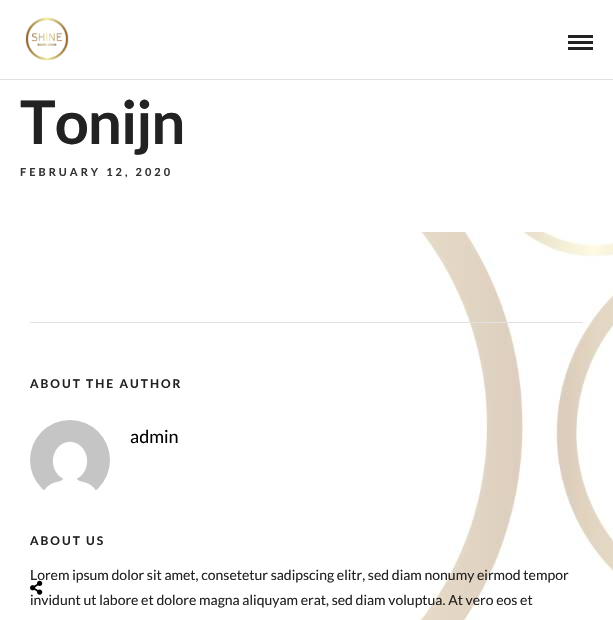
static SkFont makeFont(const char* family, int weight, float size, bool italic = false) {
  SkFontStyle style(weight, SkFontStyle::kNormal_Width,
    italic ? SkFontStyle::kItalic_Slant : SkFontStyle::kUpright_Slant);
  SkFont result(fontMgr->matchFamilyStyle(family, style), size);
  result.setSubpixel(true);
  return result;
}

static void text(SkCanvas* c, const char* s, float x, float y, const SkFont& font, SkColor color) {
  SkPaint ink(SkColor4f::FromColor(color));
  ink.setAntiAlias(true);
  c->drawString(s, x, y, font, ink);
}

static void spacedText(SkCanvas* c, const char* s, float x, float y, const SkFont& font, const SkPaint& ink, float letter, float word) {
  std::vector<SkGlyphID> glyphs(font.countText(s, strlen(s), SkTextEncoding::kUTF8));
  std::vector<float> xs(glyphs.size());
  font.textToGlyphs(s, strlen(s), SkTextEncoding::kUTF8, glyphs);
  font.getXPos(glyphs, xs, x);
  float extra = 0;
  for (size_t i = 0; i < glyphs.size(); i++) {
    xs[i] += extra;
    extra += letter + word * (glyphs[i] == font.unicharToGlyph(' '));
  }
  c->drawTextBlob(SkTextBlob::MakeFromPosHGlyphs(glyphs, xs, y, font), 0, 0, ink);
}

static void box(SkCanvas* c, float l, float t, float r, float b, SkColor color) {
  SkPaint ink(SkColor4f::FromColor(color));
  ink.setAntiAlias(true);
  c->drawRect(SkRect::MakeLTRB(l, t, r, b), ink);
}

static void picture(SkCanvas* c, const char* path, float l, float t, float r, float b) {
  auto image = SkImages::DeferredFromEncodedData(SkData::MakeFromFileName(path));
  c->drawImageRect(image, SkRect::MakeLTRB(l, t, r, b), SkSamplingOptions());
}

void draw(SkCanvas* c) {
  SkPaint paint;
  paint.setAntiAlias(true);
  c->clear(0xffffffff);
  picture(c, "img_01.png", 0, 232, 613, 620);
  box(c, 0, 79, 613, 80, 0xffe1e1e1);
  picture(c, "img_02.png", 25, 17, 69, 61);
  box(c, 568, 35, 593, 38, 0xff222222);
  box(c, 568, 41, 593, 44, 0xff222222);
  box(c, 568, 47, 593, 50, 0xff222222);
  SkFont face1 = makeFont("Lato", 700, 60);
  paint.setColor(0xff222222);
  spacedText(c, "Tonijn", 20, 144, face1, paint, -1, 0);
  SkFont face2 = makeFont("Lato", 700, 11);
  paint.setColor(0xff333333);
  spacedText(c, "FEBRUARY 12, 2020", 20, 176, face2, paint, 3, 0);
  box(c, 30, 322, 583, 323, 0xffe1e1e1);
  SkFont face3 = makeFont("Lato", 700, 12);
  paint.setColor(0xff222222);
  spacedText(c, "ABOUT THE AUTHOR", 30, 388, face3, paint, 2, 0);
  picture(c, "img_03.png", 30, 420, 110, 491);
  SkFont face4 = makeFont("Lato", 400, 18);
  text(c, "admin", 130, 443, face4, 0xff000000);
  spacedText(c, "ABOUT US", 30, 545, face3, paint, 2, 0);
  SkFont face5 = makeFont("Lato", 400, 14);
  text(c, "Lorem ipsum dolor sit amet, consetetur sadipscing elitr, sed diam nonumy eirmod tempor", 30, 580, face5, 0xff222222);
  text(c, "invidunt ut labore et dolore magna aliquyam erat, sed diam voluptua. At vero eos et", 30, 605, face5, 0xff222222);
  picture(c, "img_04.png", 30, 580, 43, 595);
}
